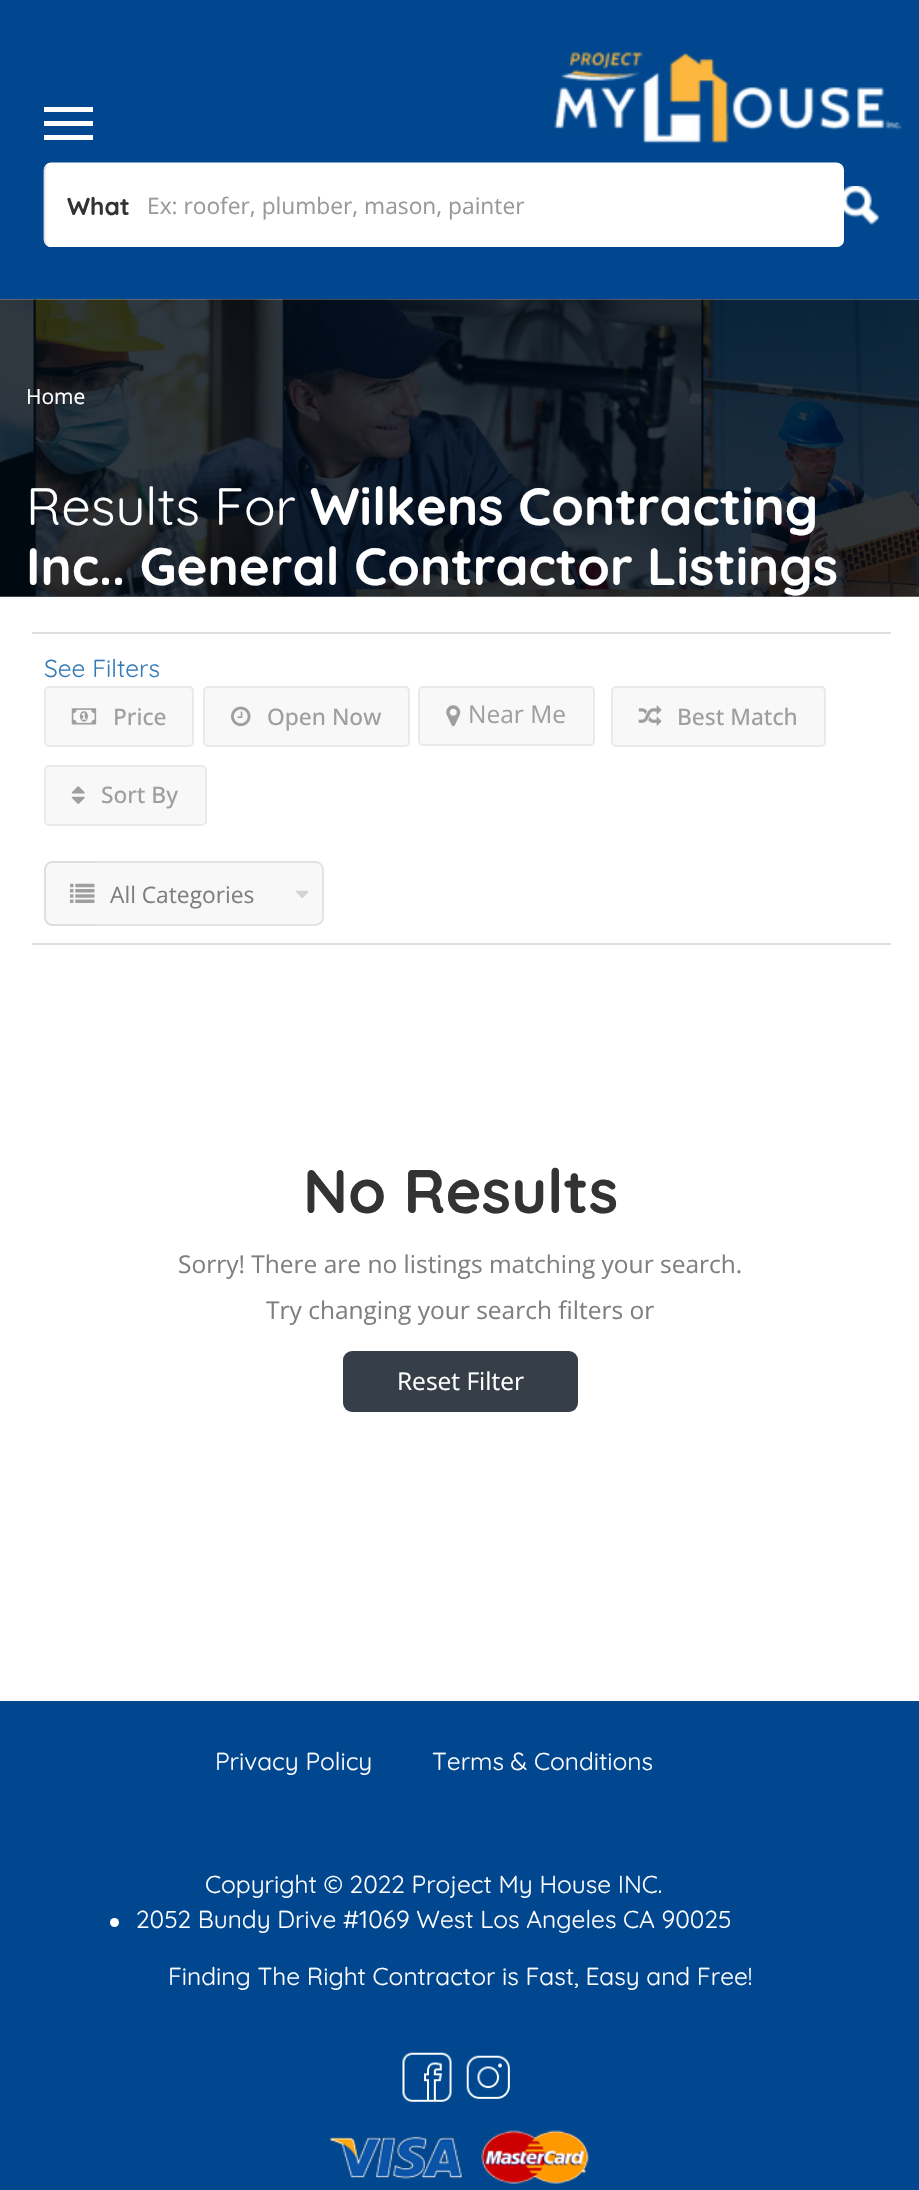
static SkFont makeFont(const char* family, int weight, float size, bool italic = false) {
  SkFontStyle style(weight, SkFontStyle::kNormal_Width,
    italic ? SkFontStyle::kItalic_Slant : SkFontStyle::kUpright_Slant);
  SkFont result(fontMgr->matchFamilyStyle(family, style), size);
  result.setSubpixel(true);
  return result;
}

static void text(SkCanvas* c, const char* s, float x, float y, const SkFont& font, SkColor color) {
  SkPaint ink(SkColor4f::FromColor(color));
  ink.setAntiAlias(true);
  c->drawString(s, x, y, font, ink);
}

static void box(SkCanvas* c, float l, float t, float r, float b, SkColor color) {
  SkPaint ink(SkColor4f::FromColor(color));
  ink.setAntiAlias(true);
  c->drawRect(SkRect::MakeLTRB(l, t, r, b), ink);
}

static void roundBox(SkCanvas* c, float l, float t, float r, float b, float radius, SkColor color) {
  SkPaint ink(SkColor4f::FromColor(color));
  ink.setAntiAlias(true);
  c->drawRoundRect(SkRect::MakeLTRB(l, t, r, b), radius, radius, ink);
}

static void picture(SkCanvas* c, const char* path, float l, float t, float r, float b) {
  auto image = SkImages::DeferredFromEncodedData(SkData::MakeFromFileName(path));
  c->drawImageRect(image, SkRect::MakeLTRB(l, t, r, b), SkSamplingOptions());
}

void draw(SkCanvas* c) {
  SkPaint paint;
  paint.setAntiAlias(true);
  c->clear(0xffffffff);
  box(c, 0, 0, 919, 299, 0xff00478f);
  picture(c, "img_01.png", 554, 52, 902, 144);
  box(c, 44, 107, 93, 112, 0xffffffff);
  box(c, 44, 121, 93, 126, 0xffffffff);
  box(c, 44, 135, 93, 140, 0xffffffff);
  roundBox(c, 44, 163, 844, 247, 7, 0xffffffff);
  paint.setStyle(SkPaint::kStroke_Style);
  paint.setStrokeWidth(1.8f);
  paint.setColor(0xffffffff);
  c->drawPath(SkPathBuilder().moveTo(46.5f, 165.5f).cubicTo(47.5f, 164.5f, 49, 163.5f, 51, 163.5f).lineTo(836.5f, 163.5f).cubicTo(838, 163.5f, 839.5f, 164.5f, 841, 165.5f).cubicTo(842, 166.5f, 842.5f, 168, 842.5f, 170).lineTo(842.5f, 240).cubicTo(842.5f, 241.5f, 842, 243, 841, 244).cubicTo(839.5f, 245, 838, 246, 836.5f, 246).lineTo(51, 246).cubicTo(49, 246, 47.5f, 245, 46.5f, 244).detach(), paint);
  paint.setColor(0xffdedede);
  c->drawPath(SkPathBuilder().moveTo(46.5f, 244).cubicTo(45.5f, 243, 44.5f, 241.5f, 44.5f, 240).lineTo(44.5f, 170).cubicTo(44.5f, 168, 45.5f, 166.5f, 46.5f, 165.5f).detach(), paint);
  SkFont face1 = makeFont("Quicksand", 700, 24.5f);
  text(c, "What", 67, 215, face1, 0xff333333);
  SkFont face2 = makeFont("Open Sans", 400, 22.75f);
  text(c, "Ex: roofer, plumber, mason, painter", 147, 214, face2, 0xff999999);
  picture(c, "img_02.png", 844, 186, 880, 225);
  picture(c, "img_03.png", 0, 299, 919, 597);
  SkFont face3 = makeFont("Open Sans", 400, 21);
  text(c, "Home", 26, 404, face3, 0xffffffff);
  SkFont face4 = makeFont("Quicksand", 400, 52.5f);
  text(c, "Results For", 26, 525, face4, 0xffffffff);
  SkFont face5 = makeFont("Quicksand", 700, 52.5f);
  text(c, "Wilkens Contracting", 310, 525, face5, 0xffffffff);
  text(c, "Inc.. General Contractor", 26, 585, face5, 0xffffffff);
  text(c, "Listings", 647, 585, face5, 0xffffffff);
  box(c, 32, 632, 891, 634, 0xffdedede);
  box(c, 32, 943, 891, 945, 0xffdedede);
  SkFont face6 = makeFont("Quicksand", 400, 24.5f);
  text(c, "See Filters", 44, 677, face6, 0xff337ab7);
  paint.setStyle(SkPaint::kFill_Style);
  paint.setColor(0xfff8f8f8);
  c->drawRoundRect(SkRect::MakeLTRB(45, 687, 193, 746), 4, 4, paint);
  paint.setStyle(SkPaint::kStroke_Style);
  paint.setStrokeWidth(2);
  paint.setColor(0xffeaeaea);
  c->drawRoundRect(SkRect::MakeLTRB(45, 687, 193, 746), 4, 4, paint);
  picture(c, "img_04.png", 71, 708, 97, 725);
  SkFont face7 = makeFont("Open Sans", 500, 22.75f);
  text(c, "Price", 113, 725, face7, 0xff9f9f9f);
  paint.setStyle(SkPaint::kFill_Style);
  paint.setColor(0xfff8f8f8);
  c->drawRoundRect(SkRect::MakeLTRB(204, 687, 409, 746), 4, 4, paint);
  paint.setStyle(SkPaint::kStroke_Style);
  paint.setColor(0xffeaeaea);
  c->drawRoundRect(SkRect::MakeLTRB(204, 687, 409, 746), 4, 4, paint);
  picture(c, "img_05.png", 231, 706, 251, 727);
  text(c, "Open Now", 267, 725, face7, 0xff9f9f9f);
  paint.setStyle(SkPaint::kFill_Style);
  paint.setColor(0xfff8f8f8);
  c->drawRoundRect(SkRect::MakeLTRB(419, 687, 594, 745), 4, 4, paint);
  paint.setStyle(SkPaint::kStroke_Style);
  paint.setColor(0xffeaeaea);
  c->drawRoundRect(SkRect::MakeLTRB(419, 687, 594, 745), 4, 4, paint);
  picture(c, "img_06.png", 446, 705, 461, 727);
  SkFont face8 = makeFont("Open Sans", 400, 24.5f);
  text(c, "Near Me", 468, 723, face8, 0xff9f9f9f);
  paint.setStyle(SkPaint::kFill_Style);
  paint.setColor(0xfff8f8f8);
  c->drawRoundRect(SkRect::MakeLTRB(612, 687, 825, 746), 4, 4, paint);
  paint.setStyle(SkPaint::kStroke_Style);
  paint.setColor(0xffeaeaea);
  c->drawRoundRect(SkRect::MakeLTRB(612, 687, 825, 746), 4, 4, paint);
  picture(c, "img_07.png", 638, 705, 662, 726);
  text(c, "Best Match", 677, 725, face7, 0xff9f9f9f);
  paint.setStyle(SkPaint::kFill_Style);
  paint.setColor(0xfff8f8f8);
  c->drawRoundRect(SkRect::MakeLTRB(45, 766, 206, 825), 4, 4, paint);
  paint.setStyle(SkPaint::kStroke_Style);
  paint.setColor(0xffeaeaea);
  c->drawRoundRect(SkRect::MakeLTRB(45, 766, 206, 825), 4, 4, paint);
  picture(c, "img_08.png", 71, 786, 85, 804);
  text(c, "Sort By", 101, 803, face7, 0xff9f9f9f);
  paint.setStyle(SkPaint::kFill_Style);
  paint.setColor(0xfff8f8f8);
  c->drawPath(SkPathBuilder().moveTo(53, 861).lineTo(96, 861).lineTo(96, 926).lineTo(53, 926).cubicTo(48, 926, 44, 922, 44, 917).lineTo(44, 870).cubicTo(44, 865, 48, 861, 53, 861).close().detach(), paint);
  paint.setColor(0xffdedede);
  c->drawPath(SkPathBuilder(SkPathFillType::kEvenOdd).moveTo(52, 861).lineTo(96, 861).lineTo(96, 926).lineTo(52, 926).cubicTo(48, 926, 44, 922, 44, 917).lineTo(44, 870).cubicTo(44, 865, 48, 861, 52, 861).close().moveTo(52, 863).lineTo(96, 863).lineTo(96, 924).lineTo(52, 924).cubicTo(49, 924, 46, 921, 46, 917).lineTo(46, 870).cubicTo(46, 866, 49, 863, 52, 863).close().detach(), paint);
  picture(c, "img_09.png", 70, 883, 95, 903);
  paint.setColor(0xfff8f8f8);
  c->drawPath(SkPathBuilder().moveTo(96, 861).lineTo(315, 861).cubicTo(320, 861, 324, 865, 324, 870).lineTo(324, 917).cubicTo(324, 922, 320, 926, 315, 926).lineTo(96, 926).close().detach(), paint);
  paint.setColor(0xffe3e3e3);
  c->drawPath(SkPathBuilder(SkPathFillType::kEvenOdd).moveTo(96, 861).lineTo(315, 861).cubicTo(320, 861, 324, 865, 324, 870).lineTo(324, 917).cubicTo(324, 922, 320, 926, 315, 926).lineTo(96, 926).close().moveTo(96, 863).lineTo(315, 863).cubicTo(319, 863, 322, 866, 322, 870).lineTo(322, 917).cubicTo(322, 921, 319, 924, 315, 924).lineTo(96, 924).close().detach(), paint);
  text(c, "All Categories", 110, 903, face2, 0xff7f7f7f);
  picture(c, "img_10.png", 295, 890, 308, 898);
  SkFont face9 = makeFont("Quicksand", 700, 61.25f);
  text(c, "No Results", 303, 1213, face9, 0xff333333);
  text(c, "Sorry! There are no listings matching your search.", 178, 1273, face8, 0xff7f7f7f);
  text(c, "Try changing your search filters or", 266, 1319, face8, 0xff7f7f7f);
  roundBox(c, 343, 1351, 578, 1412, 9, 0xff363f48);
  text(c, "Reset Filter", 397, 1390, face8, 0xffffffff);
  box(c, 0, 1701, 919, 2190, 0xff00478f);
  text(c, "Privacy Policy", 215, 1770, face6, 0xffffffff);
  text(c, "Terms & Conditions", 432, 1770, face6, 0xffffffff);
  text(c, "Copyright © 2022 Project My House INC.", 205, 1893, face6, 0xffffffff);
  paint.setColor(0xffffffff);
  c->drawCircle(114.5f, 1922.5f, 4.5f, paint);
  text(c, "2052 Bundy Drive #1069 West Los Angeles CA 90025", 136, 1928, face6, 0xffffffff);
  text(c, "Finding The Right Contractor is Fast, Easy and Free!", 168, 1985, face6, 0xffffffff);
  picture(c, "img_11.png", 402, 2052, 452, 2102);
  picture(c, "img_12.png", 466, 2055, 510, 2099);
  picture(c, "img_13.png", 330, 2130, 589, 2184);
}
